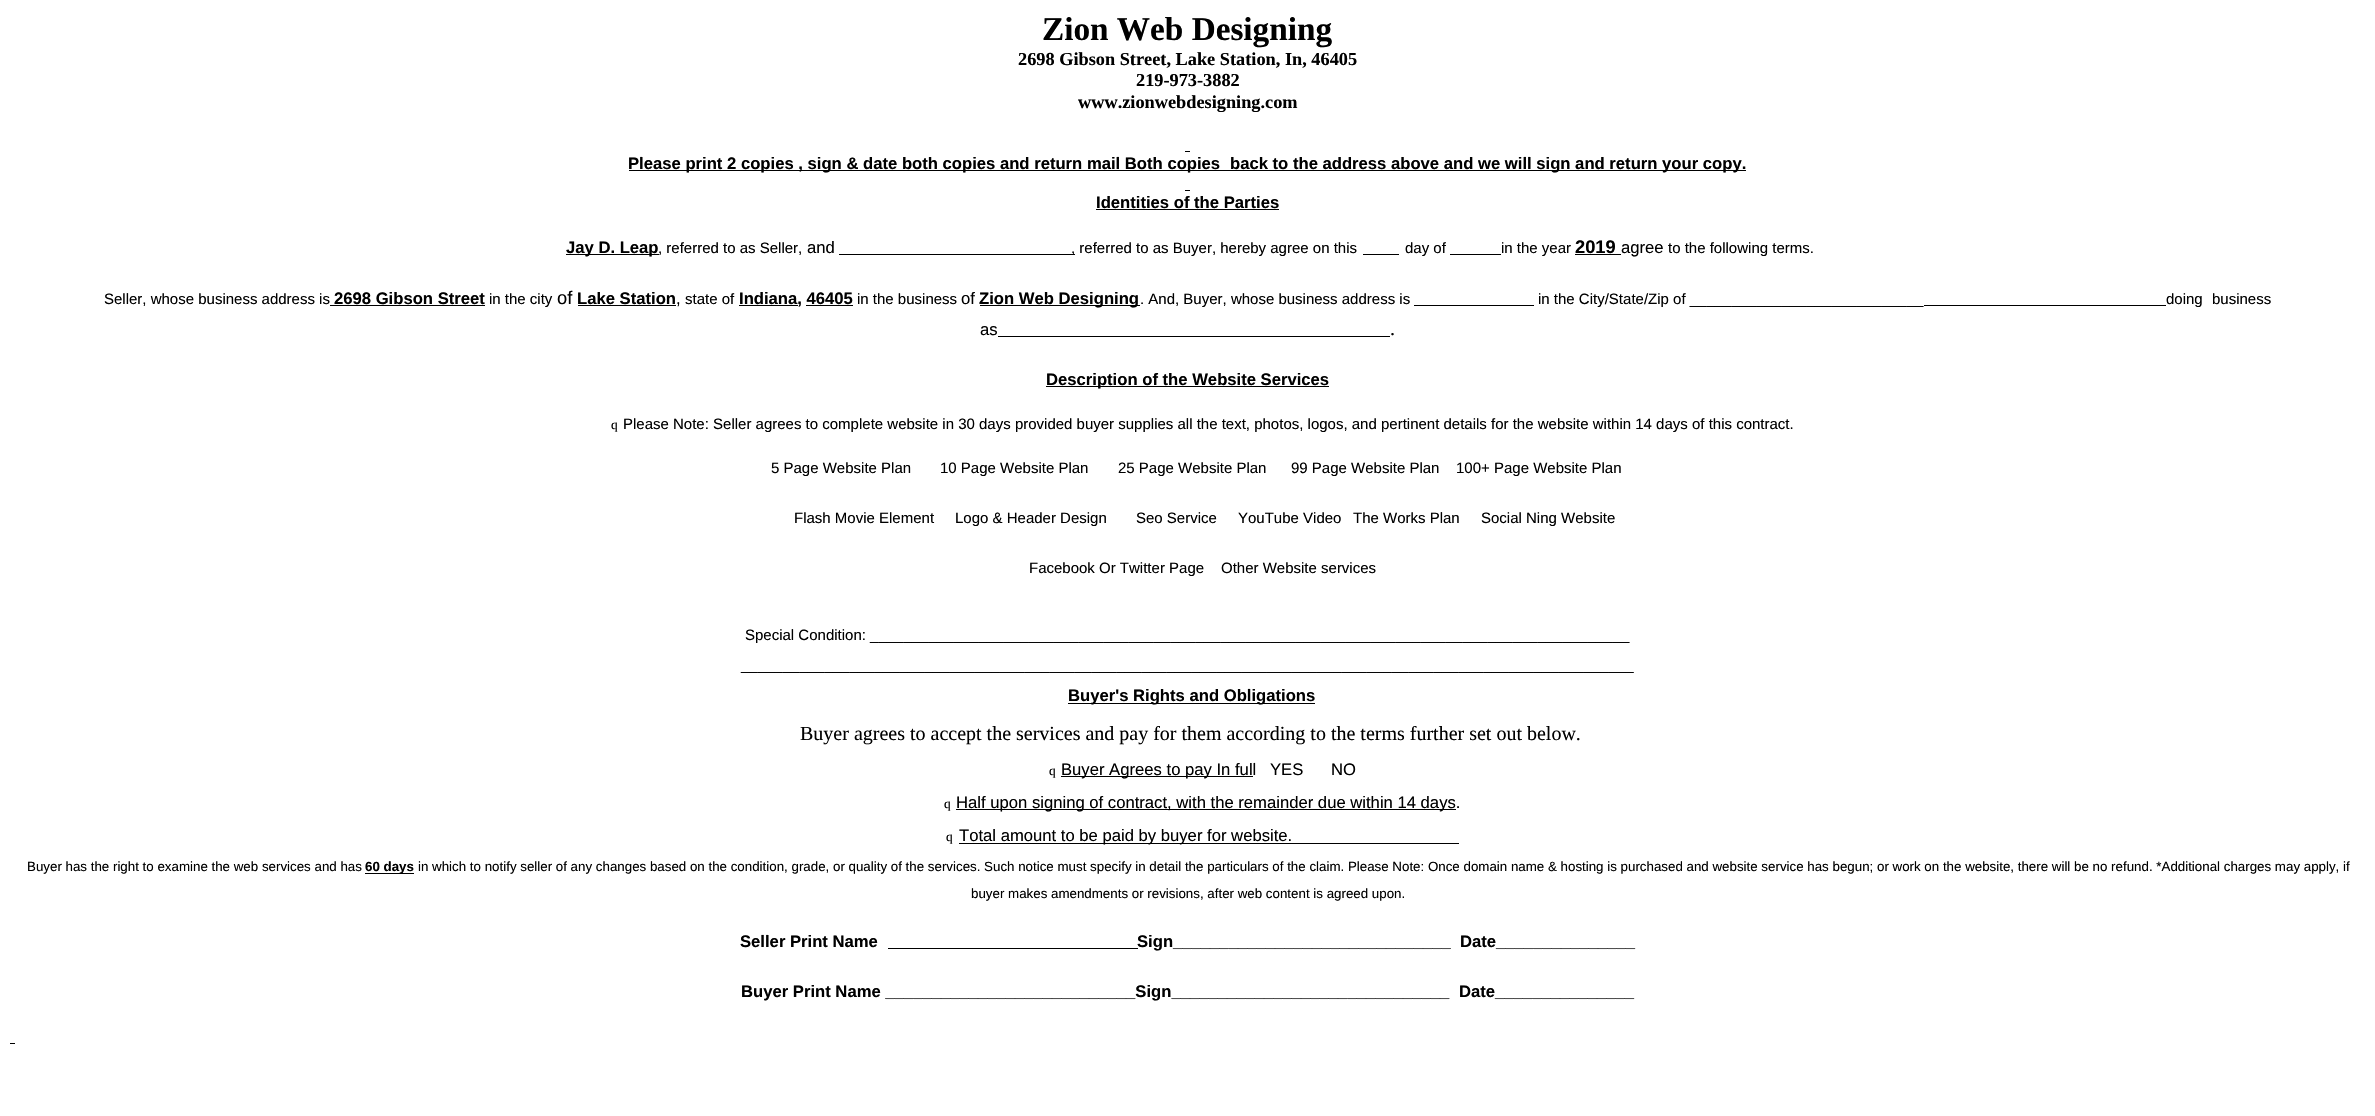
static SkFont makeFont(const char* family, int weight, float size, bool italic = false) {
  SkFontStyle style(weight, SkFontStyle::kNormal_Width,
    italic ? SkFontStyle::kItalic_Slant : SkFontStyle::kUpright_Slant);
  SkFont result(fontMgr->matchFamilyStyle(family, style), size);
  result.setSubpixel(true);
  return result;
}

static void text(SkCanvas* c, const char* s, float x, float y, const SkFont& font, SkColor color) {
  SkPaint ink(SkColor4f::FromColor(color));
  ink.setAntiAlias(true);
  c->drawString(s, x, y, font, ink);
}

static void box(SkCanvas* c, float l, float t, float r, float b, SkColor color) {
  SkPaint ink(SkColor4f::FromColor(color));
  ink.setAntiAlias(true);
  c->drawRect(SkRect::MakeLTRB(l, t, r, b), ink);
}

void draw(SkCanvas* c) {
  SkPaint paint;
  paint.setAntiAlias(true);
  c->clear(0xffffffff);
  SkFont face1 = makeFont("Liberation Serif", 700, 33.25f);
  text(c, "Zion Web Designing", 1042, 40, face1, 0xff000000);
  SkFont face2 = makeFont("Liberation Serif", 700, 18.3f);
  text(c, "2698 Gibson Street, Lake Station, In, 46405", 1018, 65, face2, 0xff000000);
  text(c, "219-973-3882", 1136, 86, face2, 0xff000000);
  text(c, "www.zionwebdesigning.com", 1078, 108, face2, 0xff000000);
  box(c, 1185, 151, 1190, 152, 0xff000000);
  box(c, 629, 170, 1746, 171, 0xff000000);
  SkFont face3 = makeFont("Liberation Sans", 700, 16.65f);
  text(c, "Please print 2 copies , sign & date both copies and return mail Both copies", 628, 169, face3, 0xff000000);
  text(c, "back to the address above and we will sign and return your copy.", 1230, 169, face3, 0xff000000);
  box(c, 1185, 190, 1190, 191, 0xff000000);
  text(c, "Identities of the Parties", 1096, 208, face3, 0xff000000);
  box(c, 1096, 209, 1279, 210, 0xff000000);
  box(c, 566, 254, 659, 255, 0xff000000);
  text(c, "Jay D. Leap", 566, 253, face3, 0xff000000);
  SkFont face4 = makeFont("Liberation Sans", 400, 15);
  text(c, ", referred to as Seller,", 658, 253, face4, 0xff000000);
  SkFont face5 = makeFont("Liberation Sans", 400, 16.65f);
  text(c, "and", 807, 253, face5, 0xff000000);
  box(c, 839, 254, 1075, 255, 0xff000000);
  text(c, ", referred to as Buyer, hereby agree on this", 1071, 253, face4, 0xff000000);
  box(c, 1363, 254, 1399, 255, 0xff000000);
  text(c, "day of", 1405, 253, face4, 0xff000000);
  box(c, 1450, 254, 1501, 255, 0xff000000);
  text(c, "in the year", 1501, 253, face4, 0xff000000);
  SkFont face6 = makeFont("Liberation Sans", 700, 18.3f);
  text(c, "2019", 1575, 253, face6, 0xff000000);
  box(c, 1575, 254, 1621, 255, 0xff000000);
  text(c, "agree", 1621, 253, face5, 0xff000000);
  text(c, "to the following terms.", 1668, 253, face4, 0xff000000);
  text(c, "Seller, whose business address is", 104, 304, face4, 0xff000000);
  box(c, 330, 305, 485, 306, 0xff000000);
  text(c, "2698 Gibson Street", 334, 304, face3, 0xff000000);
  text(c, "in the city", 489, 304, face4, 0xff000000);
  SkFont face7 = makeFont("Liberation Sans", 400, 18.3f);
  text(c, "of", 557, 304, face7, 0xff000000);
  text(c, "Lake Station", 577, 304, face3, 0xff000000);
  box(c, 578, 305, 676, 306, 0xff000000);
  text(c, ",", 676, 304, face5, 0xff000000);
  text(c, "state of", 685, 304, face4, 0xff000000);
  box(c, 739, 305, 798, 306, 0xff000000);
  text(c, "Indiana, 46405", 739, 304, face3, 0xff000000);
  text(c, "in the business", 857, 304, face4, 0xff000000);
  text(c, "of", 961, 304, face5, 0xff000000);
  box(c, 980, 305, 1140, 306, 0xff000000);
  text(c, "Zion Web Designing", 979, 304, face3, 0xff000000);
  text(c, ". And, Buyer, whose business address is", 1140, 304, face4, 0xff000000);
  text(c, "in the City/State/Zip of ____________________________", 1538, 304, face4, 0xff000000);
  text(c, "doing", 2166, 304, face4, 0xff000000);
  text(c, "business", 2212, 304, face4, 0xff000000);
  box(c, 806, 305, 853, 306, 0xff000000);
  box(c, 1414, 305, 1534, 306, 0xff000000);
  box(c, 1924, 305, 2166, 306, 0xff000000);
  text(c, "as", 980, 335, face5, 0xff000000);
  SkFont face8 = makeFont("Liberation Serif", 400, 20);
  text(c, ".", 1390, 335, face8, 0xff000000);
  box(c, 998, 336, 1390, 337, 0xff000000);
  box(c, 1046, 386, 1329, 387, 0xff000000);
  text(c, "Description of the Website Services", 1046, 385, face3, 0xff000000);
  SkFont face9 = makeFont("Liberation Serif", 400, 13.33f);
  text(c, "q", 611, 429, face9, 0xff000000);
  text(c, "Please Note: Seller agrees to complete website in 30 days provided buyer supplies all the text, photos, logos, and pertinent details for the website within 14 days of this contract.", 623, 429, face4, 0xff000000);
  text(c, "5 Page Website Plan", 771, 473, face4, 0xff000000);
  text(c, "10 Page Website Plan", 940, 473, face4, 0xff000000);
  text(c, "25 Page Website Plan", 1118, 473, face4, 0xff000000);
  text(c, "99 Page Website Plan", 1291, 473, face4, 0xff000000);
  text(c, "100+ Page Website Plan", 1456, 473, face4, 0xff000000);
  text(c, "Flash Movie Element", 794, 523, face4, 0xff000000);
  text(c, "Logo & Header Design", 955, 523, face4, 0xff000000);
  text(c, "Seo Service", 1136, 523, face4, 0xff000000);
  text(c, "YouTube Video", 1238, 523, face4, 0xff000000);
  text(c, "The Works Plan", 1353, 523, face4, 0xff000000);
  text(c, "Social Ning Website", 1481, 523, face4, 0xff000000);
  text(c, "Facebook Or Twitter Page", 1029, 573, face4, 0xff000000);
  text(c, "Other Website services", 1221, 573, face4, 0xff000000);
  text(c, "Special Condition: ___________________________________________________________________________________________", 745, 640, face4, 0xff000000);
  text(c, "___________________________________________________________________________________________________________", 741, 670, face4, 0xff000000);
  box(c, 1068, 703, 1315, 704, 0xff000000);
  text(c, "Buyer's Rights and Obligations", 1068, 701, face3, 0xff000000);
  text(c, "Buyer agrees to accept the services and pay for them according to the terms further set out below.", 800, 740, face8, 0xff000000);
  text(c, "q", 1049, 775, face9, 0xff000000);
  box(c, 1061, 776, 1253, 777, 0xff000000);
  text(c, "Buyer Agrees to pay In full", 1061, 775, face5, 0xff000000);
  text(c, "YES", 1270, 775, face5, 0xff000000);
  text(c, "NO", 1331, 775, face5, 0xff000000);
  text(c, "q", 944, 808, face9, 0xff000000);
  box(c, 956, 809, 1456, 810, 0xff000000);
  text(c, "Half upon signing of contract, with the remainder due within 14 days.", 956, 808, face5, 0xff000000);
  text(c, "q", 946, 841, face9, 0xff000000);
  box(c, 959, 843, 1459, 844, 0xff000000);
  text(c, "Total amount to be paid by buyer for website.", 959, 841, face5, 0xff000000);
  SkFont face10 = makeFont("Liberation Sans", 400, 13.33f);
  text(c, "Buyer has the right to examine the web services and has", 27, 871, face10, 0xff000000);
  box(c, 365, 873, 414, 874, 0xff000000);
  SkFont face11 = makeFont("Liberation Sans", 700, 13.33f);
  text(c, "60 days", 365, 871, face11, 0xff000000);
  text(c, "in which to notify seller of any changes based on the condition, grade, or quality of the services. Such notice must specify in detail the particulars of the claim. Please Note: Once domain name & hosting is purchased and website service has begun; or work on the website, there will be no refund. *Additional charges may apply, if", 418, 871, face10, 0xff000000);
  text(c, "buyer makes amendments or revisions, after web content is agreed upon.", 971, 898, face10, 0xff000000);
  text(c, "Seller Print Name", 740, 947, face3, 0xff000000);
  box(c, 888, 948, 1138, 949, 0xff000000);
  text(c, "Sign______________________________", 1137, 947, face3, 0xff000000);
  text(c, "Date_______________", 1460, 947, face3, 0xff000000);
  text(c, "Buyer Print Name ___________________________Sign______________________________", 741, 997, face3, 0xff000000);
  text(c, "Date_______________", 1459, 997, face3, 0xff000000);
  box(c, 10, 1043, 15, 1044, 0xff000000);
}
